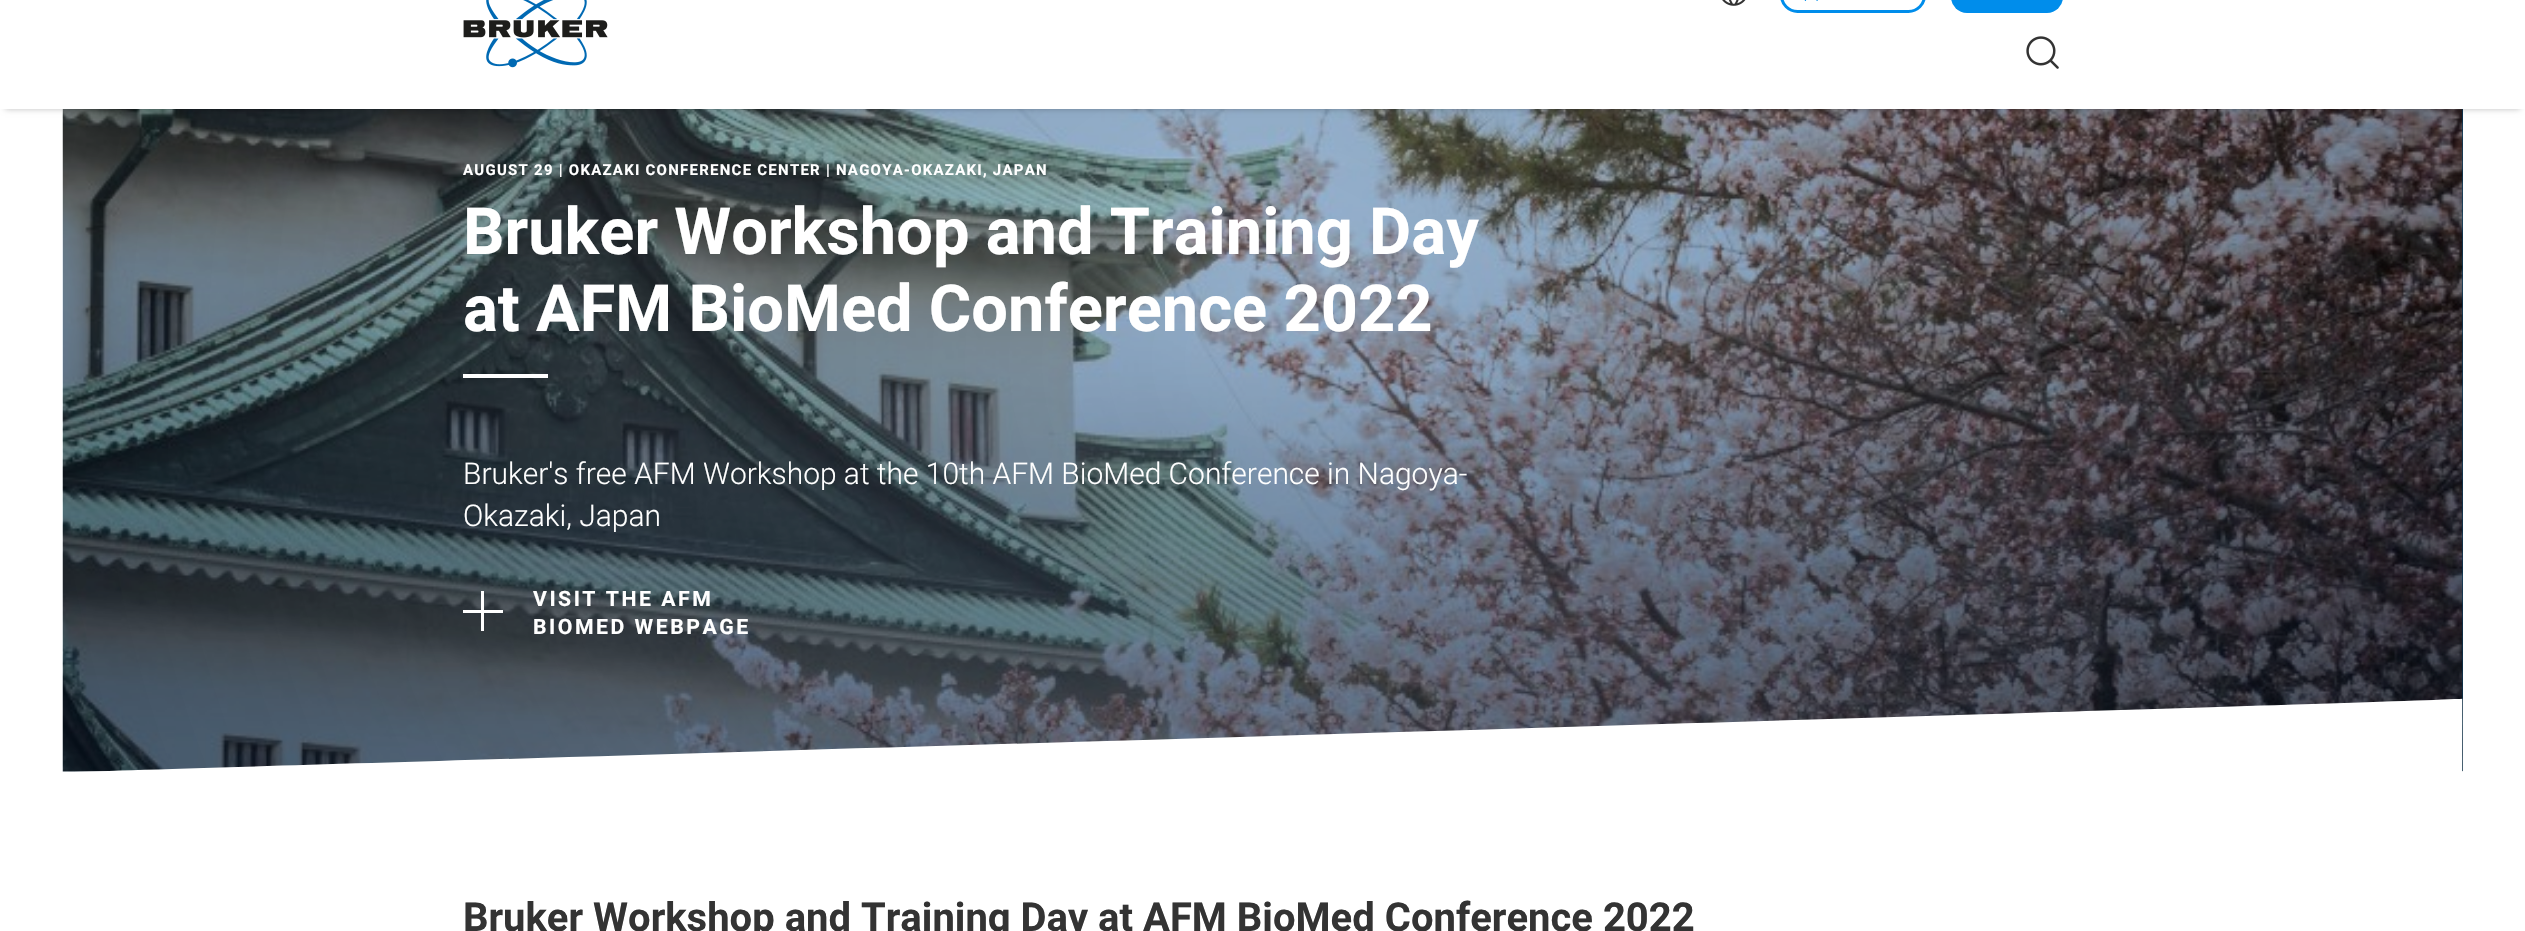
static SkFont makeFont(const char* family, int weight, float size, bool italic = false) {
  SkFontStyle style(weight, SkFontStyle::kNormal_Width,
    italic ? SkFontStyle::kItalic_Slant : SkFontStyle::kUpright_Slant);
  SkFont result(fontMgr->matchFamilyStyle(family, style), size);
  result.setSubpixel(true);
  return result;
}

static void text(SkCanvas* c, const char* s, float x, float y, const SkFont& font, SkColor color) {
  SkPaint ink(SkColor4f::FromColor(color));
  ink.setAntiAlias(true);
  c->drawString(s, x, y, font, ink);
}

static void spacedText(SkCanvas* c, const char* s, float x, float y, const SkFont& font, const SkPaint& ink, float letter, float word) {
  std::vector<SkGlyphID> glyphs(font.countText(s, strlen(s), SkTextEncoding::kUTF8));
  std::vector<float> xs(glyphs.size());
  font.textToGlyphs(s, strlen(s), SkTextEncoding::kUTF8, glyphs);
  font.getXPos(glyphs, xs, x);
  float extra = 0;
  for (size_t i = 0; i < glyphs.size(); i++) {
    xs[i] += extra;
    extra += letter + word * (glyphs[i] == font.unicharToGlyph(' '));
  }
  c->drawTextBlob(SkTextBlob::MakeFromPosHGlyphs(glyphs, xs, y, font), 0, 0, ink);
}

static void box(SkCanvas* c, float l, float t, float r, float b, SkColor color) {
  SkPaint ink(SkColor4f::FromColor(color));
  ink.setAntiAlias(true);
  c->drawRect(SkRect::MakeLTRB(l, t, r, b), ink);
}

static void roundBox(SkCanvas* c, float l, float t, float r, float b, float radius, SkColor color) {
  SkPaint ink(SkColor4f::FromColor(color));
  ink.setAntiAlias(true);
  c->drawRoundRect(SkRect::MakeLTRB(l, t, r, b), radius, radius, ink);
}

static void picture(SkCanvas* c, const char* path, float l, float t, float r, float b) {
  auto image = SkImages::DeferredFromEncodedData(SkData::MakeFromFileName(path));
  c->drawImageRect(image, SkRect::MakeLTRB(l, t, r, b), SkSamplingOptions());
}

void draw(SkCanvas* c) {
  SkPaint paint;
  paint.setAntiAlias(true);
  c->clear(0xffffffff);
  {
    const SkColor colors[] = {0xff054169, 0xff0071bc};
    const float stops[] = {0, 1};
    const SkPoint ends[] = {{2068, 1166}, {457, -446}};
    paint.setShader(SkGradientShader::MakeLinear(ends, colors, stops, 2, SkTileMode::kClamp));
    paint.setAlpha(255);
  }
  c->drawRect(SkRect::MakeLTRB(2462, 109, 2463, 771), paint);
  picture(c, "img_05.png", 62, 109, 2463, 772);
  {
    const SkColor colors[] = {0x4d787878, 0x4d090909};
    const float stops[] = {0.04f, 1};
    paint.setShader(SkGradientShader::MakeRadial({1263, 360}, 1269, colors, stops, 2, SkTileMode::kClamp));
    paint.setAlpha(255);
  }
  c->drawRect(SkRect::MakeLTRB(63, 109, 2463, 771), paint);
  paint.setShader(nullptr);
  paint.setColor(0x40000000);
  paint.setMaskFilter(SkMaskFilter::MakeBlur(kNormal_SkBlurStyle, 3));
  c->drawRect(SkRect::MakeLTRB(5, -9, 2520, 109), paint);
  paint.setMaskFilter(nullptr);
  box(c, 0, 0, 2525, 109, 0xffffffff);
  picture(c, "img_01.png", 463, 0, 608, 68);
  picture(c, "img_02.png", 1722, 0, 1746, 6);
  paint.setStyle(SkPaint::kStroke_Style);
  paint.setStrokeWidth(3);
  paint.setColor(0xff008deb);
  c->drawRoundRect(SkRect::MakeLTRB(1781.5f, -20.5f, 1924.5f, 11.5f), 17.5f, 17.5f, paint);
  picture(c, "img_03.png", 1804, 0, 1818, 1);
  roundBox(c, 1951, -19, 2063, 13, 19, 0xff008deb);
  picture(c, "img_04.png", 2026, 36, 2059, 69);
  SkFont face1 = makeFont("Roboto", 700, 15);
  paint.setStyle(SkPaint::kFill_Style);
  paint.setColor(0xffffffff);
  spacedText(c, "AUGUST 29 | OKAZAKI CONFERENCE CENTER | NAGOYA-OKAZAKI, JAPAN", 463, 175, face1, paint, 1.25f, 0);
  SkFont face2 = makeFont("Roboto", 700, 65);
  text(c, "Bruker Workshop and Training Day", 463, 254, face2, 0xffffffff);
  text(c, "at AFM BioMed Conference 2022", 463, 331, face2, 0xffffffff);
  box(c, 463, 374, 548, 378, 0xffffffff);
  SkFont face3 = makeFont("Roboto", 300, 30);
  text(c, "Bruker's free AFM Workshop at the 10th AFM BioMed Conference in Nagoya-", 463, 484, face3, 0xffffffff);
  text(c, "Okazaki, Japan", 463, 526, face3, 0xffffffff);
  box(c, 481, 591, 484, 610, 0xffffffff);
  box(c, 463, 610, 503, 613, 0xffffffff);
  box(c, 481, 612, 484, 631, 0xffffffff);
  SkFont face4 = makeFont("Roboto", 700, 21.25f);
  spacedText(c, "VISIT THE AFM", 533, 606, face4, paint, 2.5f, 0);
  spacedText(c, "BIOMED WEBPAGE", 533, 634, face4, paint, 2.5f, 0);
  picture(c, "img_06.png", 75, 698, 2463, 772);
  SkFont face5 = makeFont("Roboto", 700, 40);
  text(c, "Bruker Workshop and Training Day at AFM BioMed Conference 2022", 463, 931, face5, 0xff333333);
}
